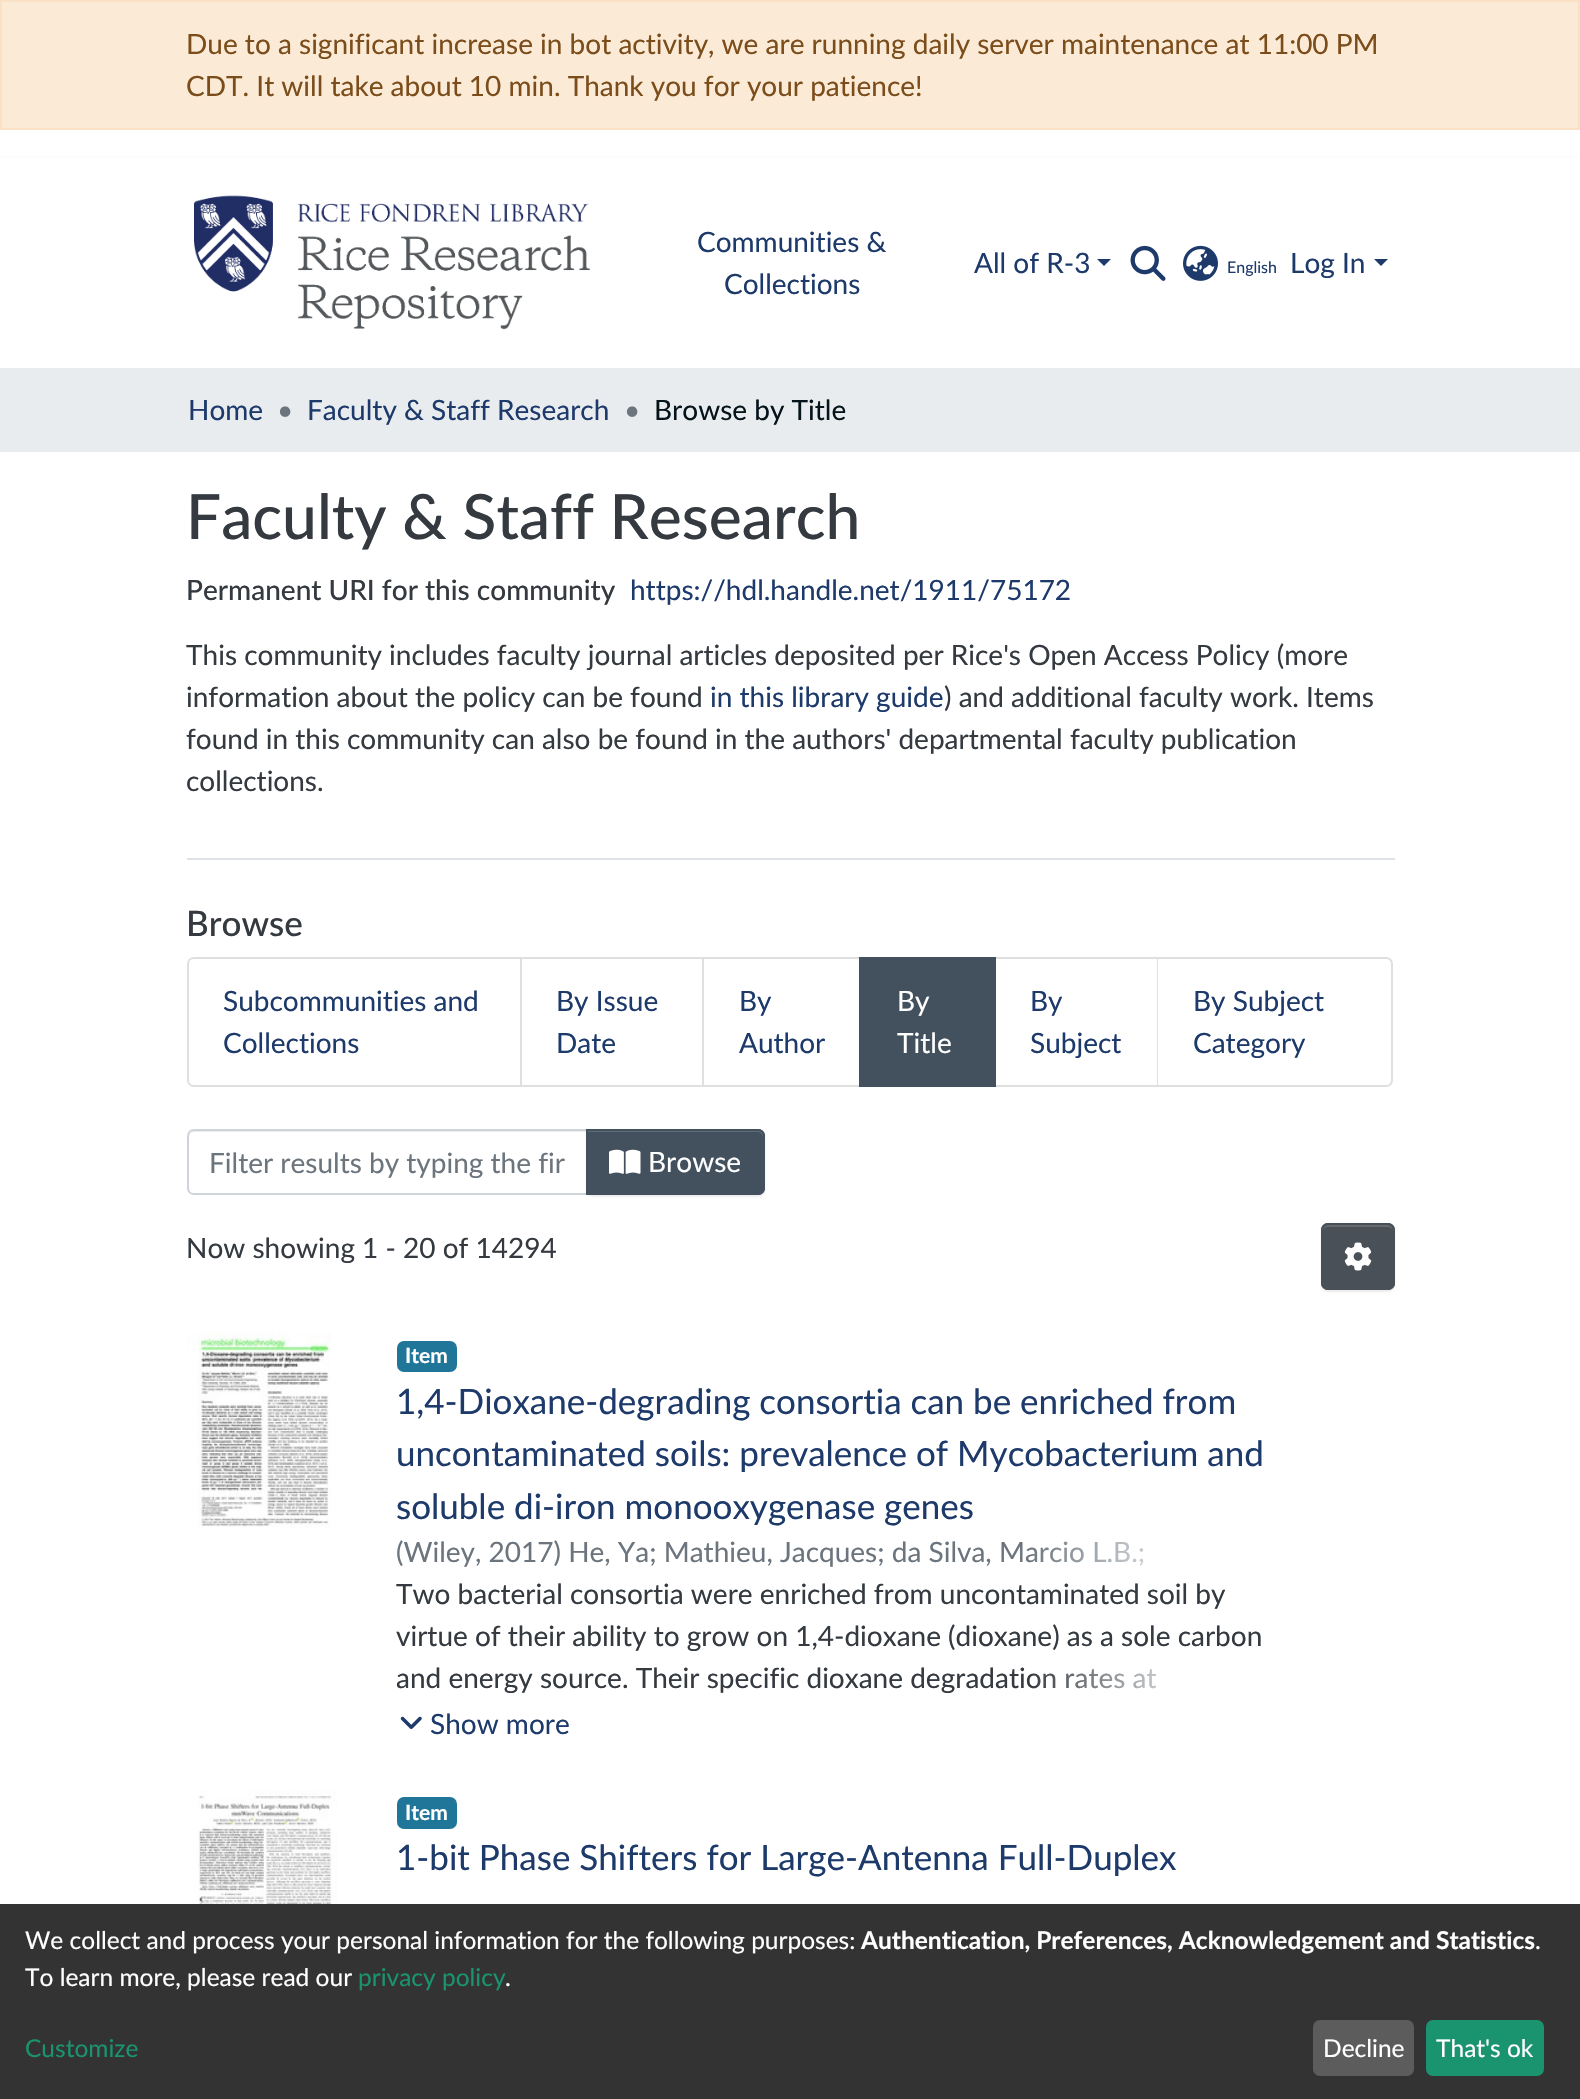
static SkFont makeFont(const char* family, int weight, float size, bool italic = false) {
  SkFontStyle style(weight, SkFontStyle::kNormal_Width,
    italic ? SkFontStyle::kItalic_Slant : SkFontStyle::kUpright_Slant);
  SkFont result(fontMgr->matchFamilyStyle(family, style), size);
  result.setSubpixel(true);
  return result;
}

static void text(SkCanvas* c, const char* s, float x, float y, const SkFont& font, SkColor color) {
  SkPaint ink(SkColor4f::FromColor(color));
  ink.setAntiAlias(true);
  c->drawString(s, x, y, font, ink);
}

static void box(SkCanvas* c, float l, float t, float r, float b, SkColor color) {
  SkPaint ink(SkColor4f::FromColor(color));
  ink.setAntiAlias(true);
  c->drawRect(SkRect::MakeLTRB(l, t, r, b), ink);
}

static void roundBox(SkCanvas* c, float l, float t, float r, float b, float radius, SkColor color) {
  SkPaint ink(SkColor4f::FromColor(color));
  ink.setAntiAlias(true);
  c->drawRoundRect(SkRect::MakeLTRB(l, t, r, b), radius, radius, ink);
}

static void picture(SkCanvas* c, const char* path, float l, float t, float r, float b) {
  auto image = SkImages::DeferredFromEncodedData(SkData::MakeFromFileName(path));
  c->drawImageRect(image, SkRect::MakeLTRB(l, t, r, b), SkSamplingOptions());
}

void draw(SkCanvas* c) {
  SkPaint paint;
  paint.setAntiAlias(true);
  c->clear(0xffffffff);
  paint.setColor(0xfffbead6);
  c->drawRect(SkRect::MakeLTRB(1, 1, 1579, 129), paint);
  paint.setStyle(SkPaint::kStroke_Style);
  paint.setStrokeWidth(2);
  paint.setColor(0xfffae1c6);
  c->drawRect(SkRect::MakeLTRB(1, 1, 1579, 129), paint);
  SkFont face1 = makeFont("Lato", 400, 28);
  text(c, "Due to a significant increase in bot activity, we are running daily server maintenance at 11:00 PM", 186, 54, face1, 0xff7b4d1b);
  text(c, "CDT. It will take about 10 min. Thank you for your patience!", 186, 96, face1, 0xff7b4d1b);
  c->save();
  c->clipPath(SkPathBuilder(SkPathFillType::kEvenOdd).moveTo(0, 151).lineTo(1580, 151).lineTo(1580, 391).lineTo(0, 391).close().moveTo(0, 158).lineTo(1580, 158).lineTo(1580, 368).lineTo(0, 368).close().detach(), true);
  paint.setStyle(SkPaint::kFill_Style);
  paint.setColor(0x80000000);
  paint.setMaskFilter(SkMaskFilter::MakeBlur(kNormal_SkBlurStyle, 4.5f));
  c->drawRect(SkRect::MakeLTRB(0, 166, 1580, 376), paint);
  paint.setMaskFilter(nullptr);
  c->restore();
  picture(c, "img_01.png", 194, 195, 590, 330);
  text(c, "Communities &", 697, 252, face1, 0xff1d3a6b);
  text(c, "Collections", 724, 294, face1, 0xff1d3a6b);
  text(c, "All of R-3", 974, 273, face1, 0xff1d3a6b);
  paint.setColor(0xff1d3a6b);
  c->drawPath(SkPathBuilder().moveTo(1097, 259).lineTo(1111, 259).lineTo(1104, 266).close().detach(), paint);
  picture(c, "img_02.png", 1130, 245, 1166, 281);
  picture(c, "img_03.png", 1183, 245, 1218, 281);
  SkFont face2 = makeFont("Lato", 400, 16);
  text(c, "English", 1227, 273, face2, 0xff1d3a6b);
  text(c, "Log In", 1290, 273, face1, 0xff1d3a6b);
  c->drawPath(SkPathBuilder().moveTo(1374, 259).lineTo(1388, 259).lineTo(1381, 266).close().detach(), paint);
  box(c, 0, 368, 1580, 452, 0xffe9ecef);
  text(c, "Home", 188, 420, face1, 0xff1d3a6b);
  text(c, "•", 277, 420, face1, 0xff6c757d);
  text(c, "Faculty & Staff Research", 307, 420, face1, 0xff1d3a6b);
  text(c, "•", 624, 420, face1, 0xff6c757d);
  text(c, "Browse by Title", 654, 420, face1, 0xff05141a);
  box(c, 187, 858, 1395, 860, 0xffdee2e6);
  SkFont face3 = makeFont("Lato", 500, 62.25f);
  text(c, "Faculty & Staff Research", 186, 539, face3, 0xff343a40);
  SkFont face4 = makeFont("Lato", 500, 28);
  text(c, "Permanent URI for this community", 186, 600, face4, 0xff343a40);
  text(c, "https://hdl.handle.net/1911/75172", 630, 600, face1, 0xff1d3a6b);
  text(c, "This community includes faculty journal articles deposited per Rice's Open Access Policy (more", 186, 665, face1, 0xff343a40);
  text(c, "information about the policy can be found", 186, 707, face1, 0xff343a40);
  text(c, "in this library guide", 710, 707, face1, 0xff1d3a6b);
  text(c, ") and additional faculty work. Items", 944, 707, face1, 0xff343a40);
  text(c, "found in this community can also be found in the authors' departmental faculty publication", 186, 749, face1, 0xff343a40);
  text(c, "collections.", 186, 791, face1, 0xff343a40);
  SkFont face5 = makeFont("Lato", 500, 35);
  text(c, "Browse", 186, 936, face5, 0xff343a40);
  paint.setStyle(SkPaint::kStroke_Style);
  paint.setColor(0xffdfdfdf);
  c->drawPath(SkPathBuilder().moveTo(194, 958).lineTo(521, 958).lineTo(521, 1086).lineTo(194, 1086).cubicTo(190.5f, 1086, 188, 1083.5f, 188, 1080).lineTo(188, 964).cubicTo(188, 960.5f, 190.5f, 958, 194, 958).close().detach(), paint);
  text(c, "Subcommunities and", 223, 1011, face1, 0xff1d3a6b);
  text(c, "Collections", 223, 1053, face1, 0xff1d3a6b);
  paint.setStyle(SkPaint::kFill_Style);
  c->drawPath(SkPathBuilder().moveTo(522, 957).lineTo(704, 957).lineTo(702, 959).lineTo(522, 959).close().detach(), paint);
  paint.setColor(0x1f000000);
  c->drawPath(SkPathBuilder().moveTo(704, 957).lineTo(704, 1087).lineTo(702, 1085).lineTo(702, 959).close().detach(), paint);
  c->drawPath(SkPathBuilder().moveTo(704, 1087).lineTo(522, 1087).lineTo(522, 1085).lineTo(702, 1085).close().detach(), paint);
  text(c, "By Issue", 556, 1011, face1, 0xff1d3a6b);
  text(c, "Date", 556, 1053, face1, 0xff1d3a6b);
  paint.setColor(0xffdfdfdf);
  c->drawPath(SkPathBuilder().moveTo(704, 957).lineTo(861, 957).lineTo(859, 959).lineTo(704, 959).close().detach(), paint);
  paint.setColor(0x1f000000);
  c->drawPath(SkPathBuilder().moveTo(861, 1087).lineTo(704, 1087).lineTo(704, 1085).lineTo(859, 1085).close().detach(), paint);
  text(c, "By", 739, 1011, face1, 0xff1d3a6b);
  text(c, "Author", 739, 1053, face1, 0xff1d3a6b);
  box(c, 859, 957, 996, 1087, 0xff43515f);
  text(c, "By", 897, 1011, face1, 0xffffffff);
  text(c, "Title", 897, 1053, face1, 0xffffffff);
  paint.setColor(0xffdfdfdf);
  c->drawPath(SkPathBuilder().moveTo(996, 957).lineTo(1158, 957).lineTo(1157, 959).lineTo(996, 959).close().detach(), paint);
  paint.setColor(0x1f000000);
  c->drawPath(SkPathBuilder().moveTo(1158, 957).lineTo(1158, 1087).lineTo(1157, 1085).lineTo(1157, 959).close().detach(), paint);
  c->drawPath(SkPathBuilder().moveTo(1158, 1087).lineTo(996, 1087).lineTo(996, 1085).lineTo(1157, 1085).close().detach(), paint);
  text(c, "By", 1030, 1011, face1, 0xff1d3a6b);
  text(c, "Subject", 1030, 1053, face1, 0xff1d3a6b);
  paint.setColor(0xffdfdfdf);
  c->drawPath(SkPathBuilder(SkPathFillType::kEvenOdd).moveTo(1158, 957).lineTo(1386, 957).cubicTo(1390, 957, 1393, 960, 1393, 964).lineTo(1393, 1080).cubicTo(1393, 1084, 1390, 1087, 1386, 1087).lineTo(1158, 1087).close().moveTo(1158, 959).lineTo(1386, 959).cubicTo(1389, 959, 1391, 961, 1391, 964).lineTo(1391, 1080).cubicTo(1391, 1083, 1389, 1085, 1386, 1085).lineTo(1158, 1085).close().detach(), paint);
  text(c, "By Subject", 1193, 1011, face1, 0xff1d3a6b);
  text(c, "Category", 1193, 1053, face1, 0xff1d3a6b);
  paint.setColor(0xffececec);
  c->drawPath(SkPathBuilder().moveTo(194, 1132).lineTo(586, 1132).lineTo(586, 1131).lineTo(194, 1131).cubicTo(191, 1131, 189, 1133, 189, 1136).lineTo(189, 1138).cubicTo(189, 1135, 191, 1132, 194, 1132).close().detach(), paint);
  paint.setStyle(SkPaint::kStroke_Style);
  paint.setColor(0xffced4da);
  c->drawPath(SkPathBuilder().moveTo(194, 1130).lineTo(587, 1130).lineTo(587, 1194).lineTo(194, 1194).cubicTo(190.5f, 1194, 188, 1191.5f, 188, 1188).lineTo(188, 1136).cubicTo(188, 1132.5f, 190.5f, 1130, 194, 1130).close().detach(), paint);
  text(c, "Filter results by typing the fir", 209, 1173, face1, 0xff6c757d);
  paint.setStyle(SkPaint::kFill_Style);
  paint.setColor(0x12000000);
  paint.setMaskFilter(SkMaskFilter::MakeBlur(kNormal_SkBlurStyle, 1));
  c->drawRoundRect(SkRect::MakeLTRB(586, 1131, 765, 1197), 7, 7, paint);
  paint.setMaskFilter(nullptr);
  paint.setColor(0xff43515f);
  c->drawPath(SkPathBuilder().moveTo(586, 1129).lineTo(758, 1129).cubicTo(762, 1129, 765, 1132, 765, 1136).lineTo(765, 1188).cubicTo(765, 1192, 762, 1195, 758, 1195).lineTo(586, 1195).close().detach(), paint);
  paint.setColor(0xff5f6b77);
  c->drawPath(SkPathBuilder().moveTo(588, 1132).lineTo(758, 1132).cubicTo(761, 1132, 763, 1135, 763, 1138).lineTo(763, 1136).cubicTo(763, 1133, 761, 1131, 758, 1131).lineTo(588, 1131).close().detach(), paint);
  paint.setStyle(SkPaint::kStroke_Style);
  paint.setColor(0xff43515f);
  c->drawPath(SkPathBuilder().moveTo(587, 1130).lineTo(758, 1130).cubicTo(761.5f, 1130, 764, 1132.5f, 764, 1136).lineTo(764, 1188).cubicTo(764, 1191.5f, 761.5f, 1194, 758, 1194).lineTo(587, 1194).close().detach(), paint);
  picture(c, "img_04.png", 609, 1149, 641, 1174);
  text(c, "Browse", 648, 1172, face1, 0xffffffff);
  text(c, "Now showing 1 - 20 of 14294", 186, 1258, face1, 0xff343a40);
  paint.setStyle(SkPaint::kFill_Style);
  paint.setColor(0x12000000);
  paint.setMaskFilter(SkMaskFilter::MakeBlur(kNormal_SkBlurStyle, 1));
  c->drawRoundRect(SkRect::MakeLTRB(1321, 1225, 1395, 1292), 7, 7, paint);
  paint.setMaskFilter(nullptr);
  roundBox(c, 1321, 1223, 1395, 1290, 7, 0xff495057);
  paint.setColor(0xff646a70);
  c->drawPath(SkPathBuilder().moveTo(1328, 1227).lineTo(1388, 1227).cubicTo(1391, 1227, 1393, 1229, 1393, 1232).cubicTo(1393, 1223, 1386, 1225, 1378, 1225).lineTo(1338, 1225).cubicTo(1330, 1225, 1323, 1223, 1323, 1232).cubicTo(1323, 1229, 1325, 1227, 1328, 1227).close().detach(), paint);
  paint.setStyle(SkPaint::kStroke_Style);
  paint.setColor(0xff495057);
  c->drawRoundRect(SkRect::MakeLTRB(1322, 1224, 1394, 1289), 6, 6, paint);
  picture(c, "img_05.png", 1344, 1242, 1372, 1271);
  picture(c, "img_06.png", 187, 1332, 331, 1528);
  roundBox(c, 397, 1341, 457, 1372, 7, 0xff207698);
  SkFont face6 = makeFont("Lato", 700, 21);
  text(c, "Item", 405, 1363, face6, 0xffffffff);
  SkFont face7 = makeFont("Lato", 400, 35);
  text(c, "1,4-Dioxane-degrading consortia can be enriched from", 396, 1414, face7, 0xff1d3a6b);
  text(c, "uncontaminated soils: prevalence of Mycobacterium and", 396, 1466, face7, 0xff1d3a6b);
  text(c, "soluble di-iron monooxygenase genes", 396, 1519, face7, 0xff1d3a6b);
  text(c, "(Wiley, 2017) He, Ya; Mathieu, Jacques; da Silva, Marcio L.B.;", 396, 1562, face1, 0xff6c757d);
  paint.setStyle(SkPaint::kFill_Style);
  {
    const SkColor colors[] = {0x00ffffff, 0xffffffff};
    const float stops[] = {0, 0.7f};
    const SkPoint ends[] = {{1027, 1552}, {1290, 1552}};
    paint.setShader(SkGradientShader::MakeLinear(ends, colors, stops, 2, SkTileMode::kClamp));
    paint.setAlpha(255);
  }
  c->drawRect(SkRect::MakeLTRB(1031, 1541, 1144, 1566), paint);
  text(c, "Two bacterial consortia were enriched from uncontaminated soil by", 396, 1604, face1, 0xff343a40);
  text(c, "virtue of their ability to grow on 1,4-dioxane (dioxane) as a sole carbon", 396, 1646, face1, 0xff343a40);
  text(c, "and energy source. Their specific dioxane degradation rates at", 396, 1688, face1, 0xff343a40);
  {
    const SkColor colors[] = {0x00ffffff, 0xffffffff};
    const float stops[] = {0, 0.7f};
    const SkPoint ends[] = {{1027, 1678}, {1290, 1678}};
    paint.setShader(SkGradientShader::MakeLinear(ends, colors, stops, 2, SkTileMode::kClamp));
    paint.setAlpha(255);
  }
  c->drawRect(SkRect::MakeLTRB(1031, 1669, 1157, 1689), paint);
  picture(c, "img_07.png", 400, 1716, 422, 1729);
  text(c, "Show more", 430, 1734, face1, 0xff1d3a6b);
  picture(c, "img_08.png", 197, 1790, 338, 1904);
  roundBox(c, 397, 1797, 457, 1829, 7, 0xff207698);
  text(c, "Item", 405, 1820, face6, 0xffffffff);
  text(c, "1-bit Phase Shifters for Large-Antenna Full-Duplex", 396, 1870, face7, 0xff1d3a6b);
  box(c, 0, 1904, 1580, 2099, 0xff333333);
  SkFont face8 = makeFont("Lato", 400, 24.5f);
  text(c, "We collect and process your personal information for the following purposes:", 25, 1949, face8, 0xffffffff);
  SkFont face9 = makeFont("Lato", 700, 24.5f);
  text(c, "Authentication, Preferences, Acknowledgement and Statistics", 861, 1949, face9, 0xffffffff);
  text(c, ".", 1535, 1949, face8, 0xffffffff);
  text(c, "To learn more, please read our", 25, 1986, face8, 0xffffffff);
  text(c, "privacy policy", 358, 1986, face8, 0xff1a936f);
  text(c, ".", 505, 1986, face8, 0xffffffff);
  text(c, "Customize", 25, 2057, face8, 0xff1a936f);
  roundBox(c, 1313, 2020, 1414, 2076, 7, 0xff5c5c5c);
  text(c, "Decline", 1323, 2057, face8, 0xffffffff);
  roundBox(c, 1426, 2020, 1544, 2076, 7, 0xff1a936f);
  text(c, "That's ok", 1436, 2057, face8, 0xffffffff);
}
